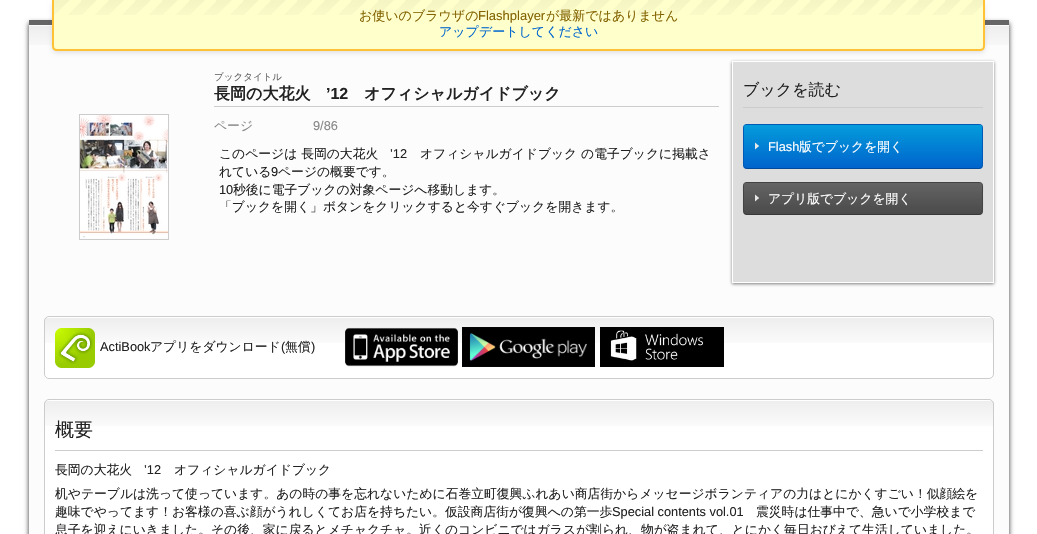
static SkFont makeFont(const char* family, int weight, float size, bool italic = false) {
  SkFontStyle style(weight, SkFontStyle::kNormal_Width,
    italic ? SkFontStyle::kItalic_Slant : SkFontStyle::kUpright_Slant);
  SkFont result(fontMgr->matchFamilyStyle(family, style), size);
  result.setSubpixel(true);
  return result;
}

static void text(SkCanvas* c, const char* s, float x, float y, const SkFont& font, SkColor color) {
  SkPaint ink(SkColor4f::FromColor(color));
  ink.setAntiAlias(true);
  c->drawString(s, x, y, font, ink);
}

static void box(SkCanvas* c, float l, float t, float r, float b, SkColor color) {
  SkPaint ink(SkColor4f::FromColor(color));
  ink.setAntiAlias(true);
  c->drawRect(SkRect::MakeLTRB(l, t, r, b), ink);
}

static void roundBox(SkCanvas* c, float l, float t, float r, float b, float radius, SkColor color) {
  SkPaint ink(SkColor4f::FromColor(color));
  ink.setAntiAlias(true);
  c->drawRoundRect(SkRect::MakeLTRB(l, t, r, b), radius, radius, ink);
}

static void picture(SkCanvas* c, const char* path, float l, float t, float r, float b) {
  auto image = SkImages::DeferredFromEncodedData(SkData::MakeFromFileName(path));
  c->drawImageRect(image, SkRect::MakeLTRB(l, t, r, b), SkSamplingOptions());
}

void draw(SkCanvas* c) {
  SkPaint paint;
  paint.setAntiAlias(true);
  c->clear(0xffffffff);
  paint.setColor(0xcc000000);
  paint.setMaskFilter(SkMaskFilter::MakeBlur(kNormal_SkBlurStyle, 2.5f));
  c->drawRect(SkRect::MakeLTRB(29, 23, 1009, 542), paint);
  paint.setMaskFilter(nullptr);
  box(c, 29, 25, 1009, 534, 0xfffcfcfc);
  picture(c, "img_02.png", 29, 26, 1009, 45);
  box(c, 29, 20, 1009, 25, 0xff666666);
  paint.setColor(0x1a000000);
  paint.setMaskFilter(SkMaskFilter::MakeBlur(kNormal_SkBlurStyle, 2));
  c->drawRoundRect(SkRect::MakeLTRB(52, 2, 985, 53), 5, 5, paint);
  paint.setMaskFilter(nullptr);
  paint.setColor(0xffffffcc);
  c->drawPath(SkPathBuilder().moveTo(52, 0).lineTo(985, 0).lineTo(985, 46).cubicTo(985, 49, 983, 51, 980, 51).lineTo(57, 51).cubicTo(54, 51, 52, 49, 52, 46).close().detach(), paint);
  picture(c, "img_01.png", 54, 0, 983, 15);
  paint.setColor(0xffffc237);
  c->drawPath(SkPathBuilder(SkPathFillType::kEvenOdd).moveTo(52, 0).lineTo(985, 0).lineTo(985, 46).cubicTo(985, 49, 983, 51, 980, 51).lineTo(57, 51).cubicTo(54, 51, 52, 49, 52, 46).close().moveTo(54, 0).lineTo(983, 0).lineTo(983, 46).cubicTo(983, 48, 982, 49, 980, 49).lineTo(57, 49).cubicTo(55, 49, 54, 48, 54, 46).close().detach(), paint);
  SkFont face1 = makeFont("WenQuanYi Zen Hei", 500, 13);
  text(c, "お使いのブラウザの", 359, 20, face1, 0xff826200);
  SkFont face2 = makeFont("Liberation Sans", 400, 13);
  text(c, "Flashplayer", 478, 20, face2, 0xff826200);
  text(c, "が最新ではありません", 546, 20, face1, 0xff826200);
  text(c, "アップデートしてください", 439, 36, face1, 0xff0066cc);
  box(c, 214, 106, 719, 107, 0xffcccccc);
  SkFont face3 = makeFont("WenQuanYi Zen Hei", 500, 9.5f);
  text(c, "ブックタイトル", 214, 80, face3, 0xff666666);
  SkFont face4 = makeFont("WenQuanYi Zen Hei", 700, 16);
  text(c, "長岡の大花火", 214, 99, face4, 0xff222222);
  SkFont face5 = makeFont("Liberation Sans", 700, 16);
  text(c, "’12", 326, 99, face5, 0xff222222);
  text(c, "オフィシャルガイドブック", 364, 99, face4, 0xff222222);
  SkFont face6 = makeFont("WenQuanYi Zen Hei", 500, 12.8f);
  text(c, "ページ", 214, 130, face6, 0xff888888);
  SkFont face7 = makeFont("Liberation Sans", 400, 12.8f);
  text(c, "9/86", 313, 130, face7, 0xff888888);
  text(c, "このページは 長岡の大花火", 219, 158, face6, 0xff222222);
  text(c, "’12", 390, 158, face7, 0xff222222);
  text(c, "オフィシャルガイドブック の電子ブックに掲載さ", 420, 158, face6, 0xff222222);
  text(c, "れている", 219, 176, face6, 0xff222222);
  text(c, "9", 271, 176, face7, 0xff222222);
  text(c, "ページの概要です。", 278, 176, face6, 0xff222222);
  text(c, "10", 219, 194, face7, 0xff222222);
  text(c, "秒後に電子ブックの対象ページへ移動します。", 233, 194, face6, 0xff222222);
  text(c, "「ブックを開く」ボタンをクリックすると今すぐブックを開きます。", 219, 211, face6, 0xff222222);
  paint.setStyle(SkPaint::kStroke_Style);
  paint.setStrokeWidth(1);
  paint.setColor(0xffcccccc);
  c->drawRect(SkRect::MakeLTRB(79.5f, 114.5f, 168.5f, 239.5f), paint);
  picture(c, "img_03.png", 80, 115, 168, 238);
  paint.setStyle(SkPaint::kFill_Style);
  paint.setColor(0x80000000);
  paint.setMaskFilter(SkMaskFilter::MakeBlur(kNormal_SkBlurStyle, 1.5f));
  c->drawRect(SkRect::MakeLTRB(732, 62, 994, 284), paint);
  paint.setMaskFilter(nullptr);
  paint.setColor(0xffdddddd);
  c->drawRect(SkRect::MakeLTRB(732.5f, 61.5f, 993.5f, 282.5f), paint);
  paint.setStyle(SkPaint::kStroke_Style);
  paint.setColor(0xffffffff);
  c->drawRect(SkRect::MakeLTRB(732.5f, 61.5f, 993.5f, 282.5f), paint);
  box(c, 743, 107, 983, 108, 0xffcccccc);
  SkFont face8 = makeFont("WenQuanYi Zen Hei", 500, 16);
  text(c, "ブックを読む", 743, 95, face8, 0xff222222);
  roundBox(c, 743, 124, 983, 169, 4, 0xff0064cd);
  c->save();
  c->clipPath(SkPathBuilder().moveTo(747, 124).lineTo(979, 124).cubicTo(981, 124, 983, 126, 983, 128).lineTo(983, 165).cubicTo(983, 167, 981, 169, 979, 169).lineTo(747, 169).cubicTo(745, 169, 743, 167, 743, 165).lineTo(743, 128).cubicTo(743, 126, 745, 124, 747, 124).close().detach(), true);
  paint.setStyle(SkPaint::kFill_Style);
  {
    const SkColor colors[] = {0xff049cdb, 0xff0064cd};
    const float stops[] = {0, 1};
    const SkPoint ends[] = {{863, 125}, {863, 168}};
    paint.setShader(SkGradientShader::MakeLinear(ends, colors, stops, 2, SkTileMode::kClamp));
    paint.setAlpha(255);
  }
  c->drawRect(SkRect::MakeLTRB(744, 125, 982, 168), paint);
  c->restore();
  paint.setStyle(SkPaint::kStroke_Style);
  paint.setShader(nullptr);
  paint.setColor(0x40000000);
  c->drawPath(SkPathBuilder().moveTo(981.5f, 167.5f).cubicTo(981, 168, 980, 168.5f, 979, 168.5f).lineTo(747, 168.5f).cubicTo(746, 168.5f, 745, 168, 744.5f, 167.5f).detach(), paint);
  paint.setColor(0x1a000000);
  c->drawPath(SkPathBuilder().moveTo(744.5f, 167.5f).cubicTo(744, 167, 743.5f, 166, 743.5f, 165).lineTo(743.5f, 128).cubicTo(743.5f, 127, 744, 126, 744.5f, 125.5f).cubicTo(745, 125, 746, 124.5f, 747, 124.5f).lineTo(979, 124.5f).cubicTo(980, 124.5f, 981, 125, 981.5f, 125.5f).cubicTo(982, 126, 982.5f, 127, 982.5f, 128).lineTo(982.5f, 165).cubicTo(982.5f, 166, 982, 167, 981.5f, 167.5f).detach(), paint);
  picture(c, "img_04.png", 755, 142, 759, 150);
  text(c, "Flash", 768, 151, face7, 0xffffffff);
  text(c, "版でブックを開く", 799, 151, face6, 0xffffffff);
  roundBox(c, 743, 182, 983, 215, 4, 0xff4a4a4a);
  c->save();
  c->clipPath(SkPathBuilder().moveTo(747, 182).lineTo(979, 182).cubicTo(981, 182, 983, 184, 983, 186).lineTo(983, 211).cubicTo(983, 213, 981, 215, 979, 215).lineTo(747, 215).cubicTo(745, 215, 743, 213, 743, 211).lineTo(743, 186).cubicTo(743, 184, 745, 182, 747, 182).close().detach(), true);
  paint.setStyle(SkPaint::kFill_Style);
  {
    const SkColor colors[] = {0xff646464, 0xff4a4a4a};
    const float stops[] = {0, 1};
    const SkPoint ends[] = {{863, 183}, {863, 214}};
    paint.setShader(SkGradientShader::MakeLinear(ends, colors, stops, 2, SkTileMode::kClamp));
    paint.setAlpha(255);
  }
  c->drawRect(SkRect::MakeLTRB(744, 183, 982, 214), paint);
  c->restore();
  paint.setStyle(SkPaint::kStroke_Style);
  paint.setShader(nullptr);
  paint.setColor(0x40000000);
  c->drawPath(SkPathBuilder().moveTo(981.5f, 213.5f).cubicTo(981, 214, 980, 214.5f, 979, 214.5f).lineTo(747, 214.5f).cubicTo(746, 214.5f, 745, 214, 744.5f, 213.5f).detach(), paint);
  paint.setColor(0x1a000000);
  c->drawPath(SkPathBuilder().moveTo(744.5f, 213.5f).cubicTo(742.5f, 211, 743.5f, 197.5f, 743.5f, 194.5f).cubicTo(743.5f, 192, 741.5f, 182.5f, 747, 182.5f).lineTo(979, 182.5f).cubicTo(984.5f, 182.5f, 982.5f, 192, 982.5f, 194.5f).cubicTo(982.5f, 197.5f, 983.5f, 211, 981.5f, 213.5f).detach(), paint);
  picture(c, "img_05.png", 755, 194, 759, 202);
  text(c, "アプリ版でブックを開く", 768, 203, face6, 0xffffffff);
  roundBox(c, 44, 316, 994, 379, 5, 0xffffffff);
  picture(c, "img_06.png", 44, 318, 994, 343);
  paint.setColor(0xffcccccc);
  c->drawRoundRect(SkRect::MakeLTRB(44.5f, 316.5f, 993.5f, 378.5f), 4.5f, 4.5f, paint);
  picture(c, "img_07.png", 55, 328, 95, 368);
  text(c, "ActiBook", 100, 351, face7, 0xff222222);
  text(c, "アプリをダウンロード", 150, 351, face6, 0xff222222);
  text(c, "(", 281, 351, face7, 0xff222222);
  text(c, "無償", 285, 351, face6, 0xff222222);
  text(c, ")", 311, 351, face7, 0xff222222);
  picture(c, "img_08.png", 345, 327, 458, 367);
  picture(c, "img_09.png", 462, 327, 595, 367);
  picture(c, "img_10.png", 600, 327, 724, 367);
  roundBox(c, 44, 399, 994, 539, 5, 0xffffffff);
  picture(c, "img_06.png", 44, 401, 994, 426);
  c->drawRoundRect(SkRect::MakeLTRB(44.5f, 399.5f, 993.5f, 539.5f), 4.5f, 4.5f, paint);
  box(c, 55, 450, 983, 451, 0xffcccccc);
  SkFont face9 = makeFont("WenQuanYi Zen Hei", 500, 19);
  text(c, "概要", 55, 436, face9, 0xff222222);
  text(c, "長岡の大花火", 55, 474, face6, 0xff222222);
  text(c, "’12", 144, 474, face7, 0xff222222);
  text(c, "オフィシャルガイドブック", 174, 474, face6, 0xff222222);
  text(c, "机やテーブルは洗って使っています。あの時の事を忘れないために石巻立町復興ふれあい商店街からメッセージボランティアの力はとにかくすごい！似顔絵を", 55, 498, face6, 0xff222222);
  text(c, "趣味でやってます！お客様の喜ぶ顔がうれしくてお店を持ちたい。仮設商店街が復興への第一歩", 55, 516, face6, 0xff222222);
  text(c, "Special contents vol.01", 612, 516, face7, 0xff222222);
  text(c, "震災時は仕事中で、急いで小学校まで", 756, 516, face6, 0xff222222);
  text(c, "息子を迎えにいきました。その後、家に戻るとメチャクチャ。近くのコンビニではガラスが割られ、物が盗まれて、とにかく毎日おびえて生活していました。", 55, 534, face6, 0xff222222);
}
